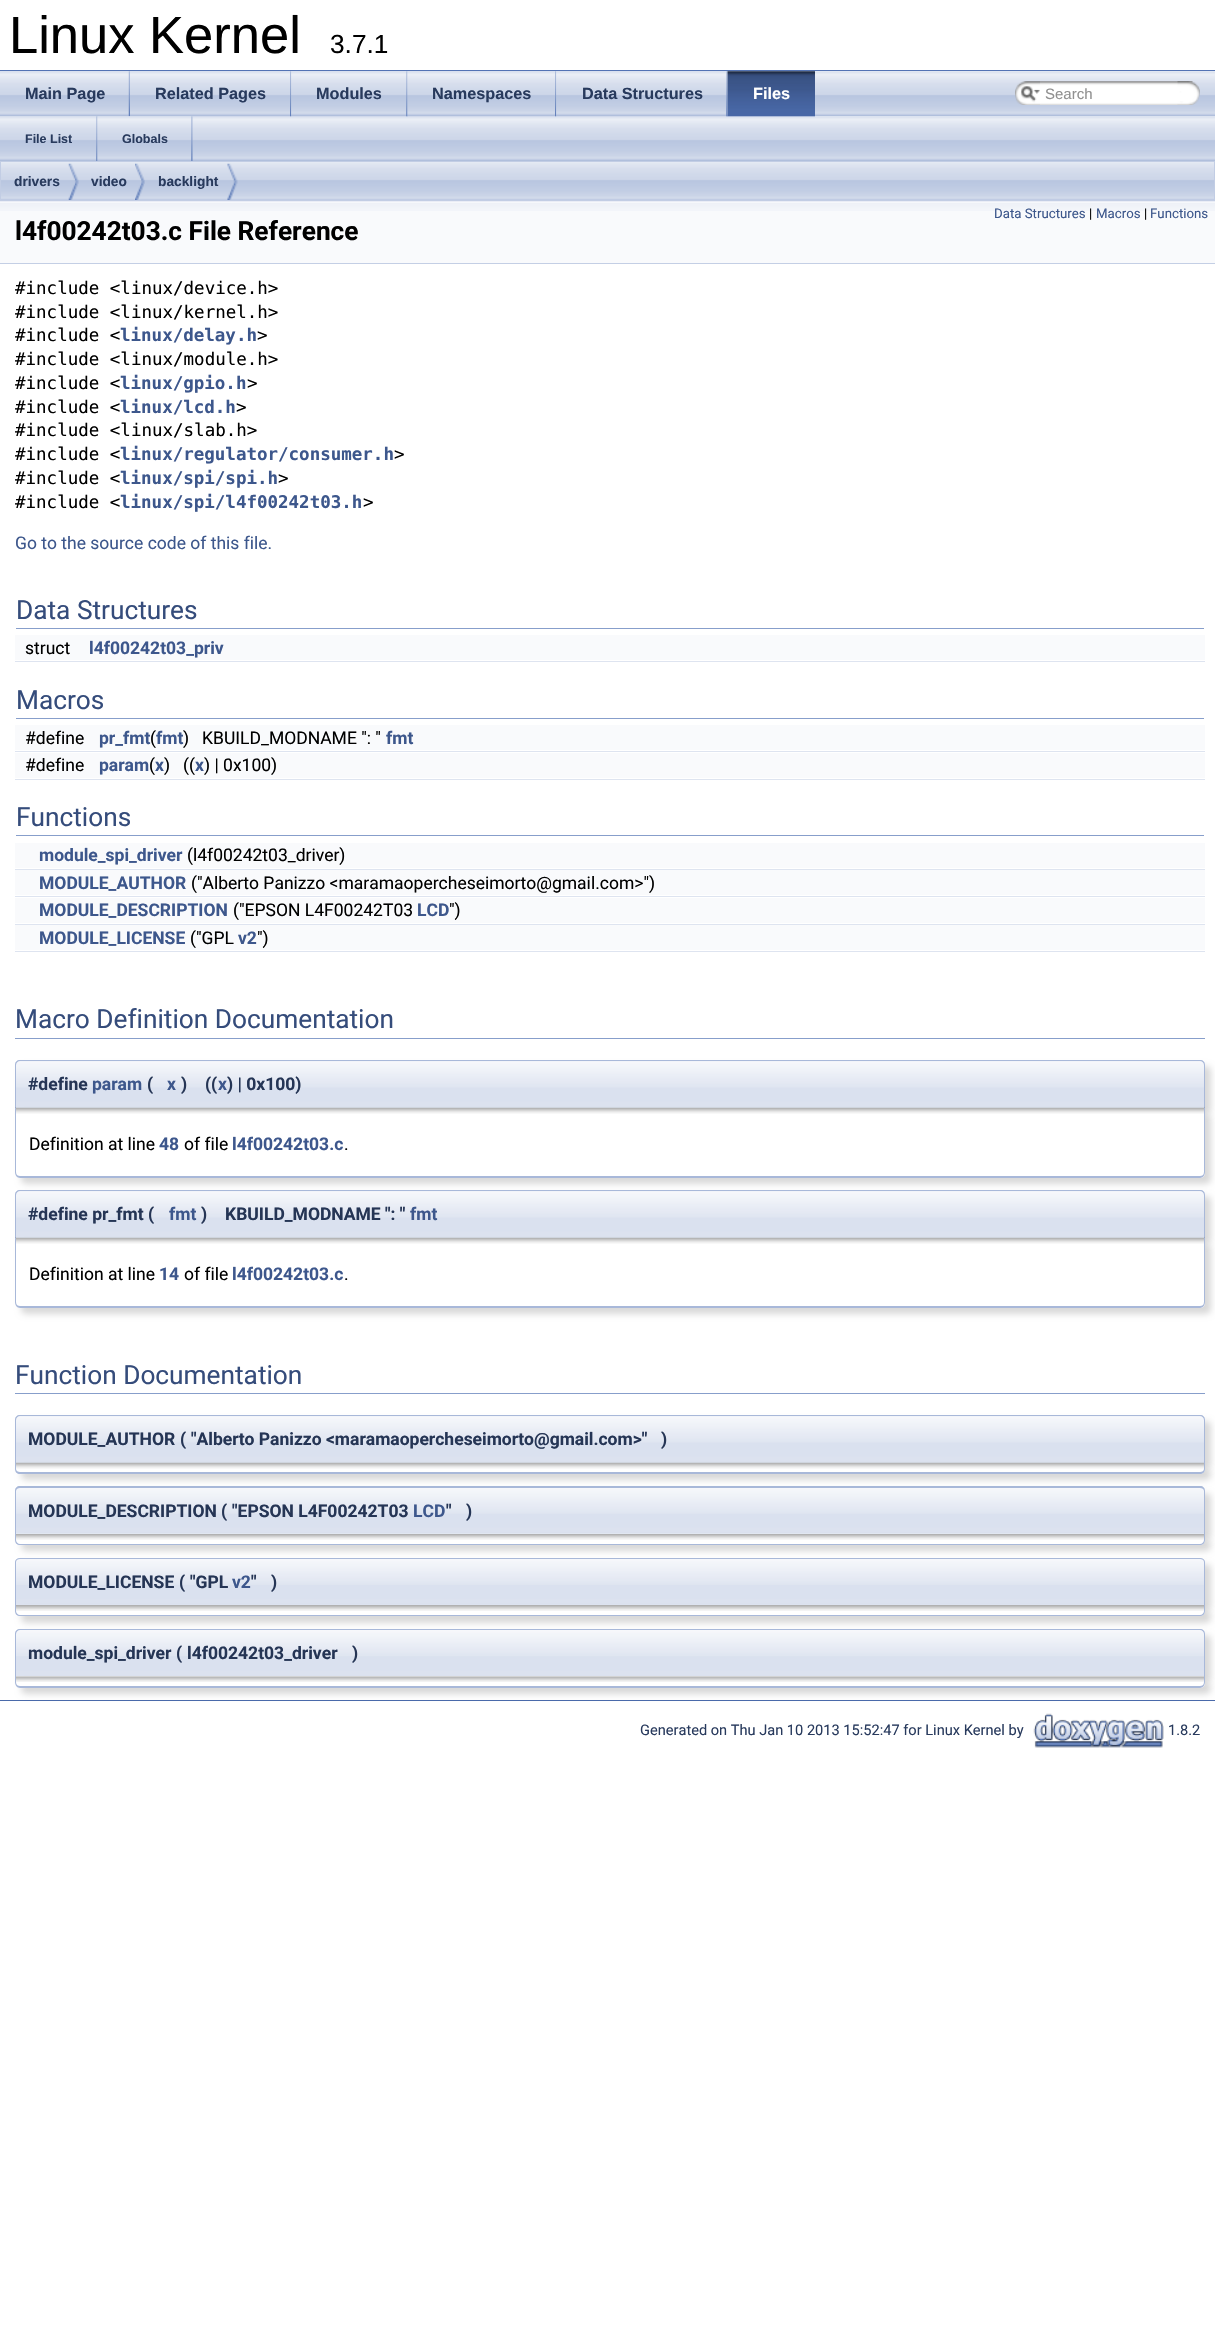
static SkFont makeFont(const char* family, int weight, float size, bool italic = false) {
  SkFontStyle style(weight, SkFontStyle::kNormal_Width,
    italic ? SkFontStyle::kItalic_Slant : SkFontStyle::kUpright_Slant);
  SkFont result(fontMgr->matchFamilyStyle(family, style), size);
  result.setSubpixel(true);
  return result;
}

static void text(SkCanvas* c, const char* s, float x, float y, const SkFont& font, SkColor color) {
  SkPaint ink(SkColor4f::FromColor(color));
  ink.setAntiAlias(true);
  c->drawString(s, x, y, font, ink);
}

static void box(SkCanvas* c, float l, float t, float r, float b, SkColor color) {
  SkPaint ink(SkColor4f::FromColor(color));
  ink.setAntiAlias(true);
  c->drawRect(SkRect::MakeLTRB(l, t, r, b), ink);
}

static void picture(SkCanvas* c, const char* path, float l, float t, float r, float b) {
  auto image = SkImages::DeferredFromEncodedData(SkData::MakeFromFileName(path));
  c->drawImageRect(image, SkRect::MakeLTRB(l, t, r, b), SkSamplingOptions());
}

void draw(SkCanvas* c) {
  SkPaint paint;
  paint.setAntiAlias(true);
  c->clear(0xffffffff);
  box(c, 0, 70, 1215, 71, 0xff5373b4);
  SkFont face1 = makeFont("Liberation Sans", 400, 52.5f);
  text(c, "Linux Kernel", 9, 53, face1, 0xff000000);
  SkFont face2 = makeFont("Liberation Sans", 400, 26.25f);
  text(c, "3.7.1", 330, 53, face2, 0xff000000);
  picture(c, "img_01.png", 0, 71, 1215, 117);
  picture(c, "img_16.png", 0, 116, 1215, 161);
  picture(c, "img_02.png", 0, 71, 130, 117);
  picture(c, "img_03.png", 128, 71, 130, 117);
  SkFont face3 = makeFont("Liberation Sans", 700, 16.25f);
  text(c, "Main Page", 25, 99, face3, 0xff283a5d);
  picture(c, "img_04.png", 130, 71, 291, 117);
  picture(c, "img_05.png", 290, 71, 292, 117);
  text(c, "Related Pages", 155, 99, face3, 0xff283a5d);
  picture(c, "img_06.png", 291, 71, 408, 117);
  picture(c, "img_07.png", 406, 71, 408, 117);
  text(c, "Modules", 316, 99, face3, 0xff283a5d);
  picture(c, "img_08.png", 407, 71, 556, 117);
  picture(c, "img_05.png", 555, 71, 557, 117);
  text(c, "Namespaces", 432, 99, face3, 0xff283a5d);
  picture(c, "img_09.png", 556, 71, 728, 117);
  picture(c, "img_07.png", 726, 71, 728, 117);
  text(c, "Data Structures", 582, 99, face3, 0xff283a5d);
  picture(c, "img_10.png", 727, 71, 815, 117);
  picture(c, "img_11.png", 727, 71, 815, 117);
  text(c, "Files", 753, 99, face3, 0xffffffff);
  picture(c, "img_12.png", 1015, 81, 1040, 105);
  picture(c, "img_13.png", 1021, 86, 1040, 102);
  picture(c, "img_14.png", 1040, 81, 1193, 105);
  SkFont face4 = makeFont("Liberation Sans", 400, 15);
  text(c, "Search", 1045, 99, face4, 0xff909090);
  picture(c, "img_15.png", 1177, 81, 1200, 105);
  picture(c, "img_17.png", 0, 116, 98, 161);
  picture(c, "img_18.png", 96, 116, 98, 161);
  SkFont face5 = makeFont("Liberation Sans", 700, 12.5f);
  text(c, "File List", 25, 143, face5, 0xff283a5d);
  picture(c, "img_19.png", 97, 116, 193, 161);
  picture(c, "img_18.png", 191, 116, 193, 161);
  text(c, "Globals", 122, 143, face5, 0xff283a5d);
  box(c, 0, 201, 1215, 263, 0xfff9fafc);
  picture(c, "img_24.png", 0, 201, 1215, 211);
  picture(c, "img_20.png", 0, 162, 1215, 202);
  paint.setStyle(SkPaint::kStroke_Style);
  paint.setStrokeWidth(1);
  paint.setColor(0xffc2cde4);
  c->drawRect(SkRect::MakeLTRB(0.5f, 161.5f, 1214.5f, 200.5f), paint);
  picture(c, "img_21.png", 68, 163, 79, 200);
  SkFont face6 = makeFont("Liberation Sans", 700, 13.75f);
  text(c, "drivers", 14, 186, face6, 0xff283a5d);
  picture(c, "img_22.png", 135, 163, 145, 200);
  text(c, "video", 91, 186, face6, 0xff283a5d);
  picture(c, "img_23.png", 227, 163, 238, 200);
  text(c, "backlight", 158, 186, face6, 0xff283a5d);
  box(c, 0, 263, 1215, 264, 0xffc4cfe5);
  SkFont face7 = makeFont("Roboto", 400, 13.25f);
  text(c, "Data Structures", 994, 218, face7, 0xff3d578c);
  text(c, "|", 1089, 218, face7, 0xff000000);
  text(c, "Macros", 1096, 218, face7, 0xff3d578c);
  text(c, "|", 1144, 218, face7, 0xff000000);
  text(c, "Functions", 1150, 218, face7, 0xff3d578c);
  SkFont face8 = makeFont("Roboto", 700, 26.25f);
  text(c, "l4f00242t03.c File Reference", 15, 240, face8, 0xff000000);
  SkFont face9 = makeFont("DejaVu Sans Mono", 400, 17.5f);
  text(c, "#include <linux/device.h>", 15, 294, face9, 0xff000000);
  text(c, "#include <linux/kernel.h>", 15, 318, face9, 0xff000000);
  text(c, "#include <", 15, 341, face9, 0xff000000);
  SkFont face10 = makeFont("DejaVu Sans Mono", 700, 17.5f);
  text(c, "linux/delay.h", 120, 341, face10, 0xff3d578c);
  text(c, ">", 257, 341, face9, 0xff000000);
  text(c, "#include <linux/module.h>", 15, 365, face9, 0xff000000);
  text(c, "#include <", 15, 389, face9, 0xff000000);
  text(c, "linux/gpio.h", 120, 389, face10, 0xff3d578c);
  text(c, ">", 247, 389, face9, 0xff000000);
  text(c, "#include <", 15, 413, face9, 0xff000000);
  text(c, "linux/lcd.h", 120, 413, face10, 0xff3d578c);
  text(c, ">", 236, 413, face9, 0xff000000);
  text(c, "#include <linux/slab.h>", 15, 436, face9, 0xff000000);
  text(c, "#include <", 15, 460, face9, 0xff000000);
  text(c, "linux/regulator/consumer.h", 120, 460, face10, 0xff3d578c);
  text(c, ">", 394, 460, face9, 0xff000000);
  text(c, "#include <", 15, 484, face9, 0xff000000);
  text(c, "linux/spi/spi.h", 120, 484, face10, 0xff3d578c);
  text(c, ">", 278, 484, face9, 0xff000000);
  text(c, "#include <", 15, 508, face9, 0xff000000);
  text(c, "linux/spi/l4f00242t03.h", 120, 508, face10, 0xff3d578c);
  text(c, ">", 363, 508, face9, 0xff000000);
  SkFont face11 = makeFont("Roboto", 400, 17.5f);
  text(c, "Go to the source code of this file.", 15, 549, face11, 0xff3d578c);
  box(c, 16, 628, 1204, 629, 0xff879ecb);
  SkFont face12 = makeFont("Roboto", 400, 26.25f);
  text(c, "Data Structures", 16, 619, face12, 0xff354c7b);
  box(c, 15, 635, 1205, 660, 0xfff9fafc);
  text(c, "struct", 25, 654, face11, 0xff000000);
  SkFont face13 = makeFont("Roboto", 700, 17.5f);
  text(c, "l4f00242t03_priv", 89, 654, face13, 0xff3d578c);
  box(c, 15, 661, 1205, 662, 0xffdee4f0);
  box(c, 16, 718, 1204, 719, 0xff879ecb);
  text(c, "Macros", 16, 709, face12, 0xff354c7b);
  box(c, 15, 725, 1205, 750, 0xfff9fafc);
  text(c, "#define", 25, 744, face11, 0xff000000);
  text(c, "pr_fmt", 99, 744, face13, 0xff3d578c);
  text(c, "(", 150, 744, face11, 0xff000000);
  text(c, "fmt", 156, 744, face13, 0xff3d578c);
  text(c, ")   KBUILD_MODNAME \": \"", 183, 744, face11, 0xff000000);
  text(c, "fmt", 386, 744, face13, 0xff3d578c);
  box(c, 15, 751, 1205, 752, 0xffdee4f0);
  box(c, 15, 753, 1205, 778, 0xfff9fafc);
  text(c, "#define", 25, 771, face11, 0xff000000);
  text(c, "param", 99, 771, face13, 0xff3d578c);
  text(c, "(", 149, 771, face11, 0xff000000);
  text(c, "x", 155, 771, face13, 0xff3d578c);
  text(c, ")   ((", 164, 771, face11, 0xff000000);
  text(c, "x", 195, 771, face13, 0xff3d578c);
  text(c, ") | 0x100)", 204, 771, face11, 0xff000000);
  box(c, 15, 779, 1205, 780, 0xffdee4f0);
  box(c, 16, 835, 1204, 836, 0xff879ecb);
  text(c, "Functions", 16, 826, face12, 0xff354c7b);
  box(c, 15, 843, 1205, 868, 0xfff9fafc);
  text(c, "module_spi_driver", 39, 861, face13, 0xff3d578c);
  text(c, "(l4f00242t03_driver)", 187, 861, face11, 0xff000000);
  box(c, 15, 869, 1205, 870, 0xffdee4f0);
  box(c, 15, 870, 1205, 895, 0xfff9fafc);
  text(c, "MODULE_AUTHOR", 39, 889, face13, 0xff3d578c);
  text(c, "(\"Alberto Panizzo <maramaopercheseimorto@gmail.com>\")", 191, 889, face11, 0xff000000);
  box(c, 15, 896, 1205, 897, 0xffdee4f0);
  box(c, 15, 898, 1205, 923, 0xfff9fafc);
  text(c, "MODULE_DESCRIPTION", 39, 916, face13, 0xff3d578c);
  text(c, "(\"EPSON L4F00242T03", 233, 916, face11, 0xff000000);
  text(c, "LCD", 417, 916, face13, 0xff3d578c);
  text(c, "\")", 449, 916, face11, 0xff000000);
  box(c, 15, 924, 1205, 925, 0xffdee4f0);
  box(c, 15, 925, 1205, 950, 0xfff9fafc);
  text(c, "MODULE_LICENSE", 39, 944, face13, 0xff3d578c);
  text(c, "(\"GPL", 190, 944, face11, 0xff000000);
  text(c, "v2", 238, 944, face13, 0xff3d578c);
  text(c, "\")", 257, 944, face11, 0xff000000);
  box(c, 15, 951, 1205, 952, 0xffdee4f0);
  box(c, 15, 1038, 1205, 1039, 0xff879ecb);
  text(c, "Macro Definition Documentation", 15, 1028, face12, 0xff354c7b);
  paint.setStyle(SkPaint::kFill_Style);
  paint.setColor(0x26000000);
  paint.setMaskFilter(SkMaskFilter::MakeBlur(kNormal_SkBlurStyle, 3));
  c->drawRoundRect(SkRect::MakeLTRB(21, 1066, 1211, 1114), 5, 5, paint);
  paint.setMaskFilter(nullptr);
  paint.setColor(0xffe2e8f2);
  c->drawPath(SkPathBuilder().moveTo(20, 1060).lineTo(1200, 1060).cubicTo(1203, 1060, 1205, 1062, 1205, 1065).lineTo(1205, 1108).lineTo(15, 1108).lineTo(15, 1065).cubicTo(15, 1062, 17, 1060, 20, 1060).close().detach(), paint);
  picture(c, "img_25.png", 15, 1061, 1205, 1107);
  paint.setColor(0xffa8b8d9);
  c->drawPath(SkPathBuilder(SkPathFillType::kEvenOdd).moveTo(20, 1060).lineTo(1200, 1060).cubicTo(1203, 1060, 1205, 1062, 1205, 1065).lineTo(1205, 1108).lineTo(15, 1108).lineTo(15, 1065).cubicTo(15, 1062, 17, 1060, 20, 1060).close().moveTo(20, 1061).lineTo(1200, 1061).cubicTo(1202, 1061, 1204, 1063, 1204, 1065).lineTo(1204, 1108).lineTo(16, 1108).lineTo(16, 1065).cubicTo(16, 1063, 18, 1061, 20, 1061).close().detach(), paint);
  text(c, "#define", 28, 1090, face13, 0xff253555);
  text(c, "param", 92, 1090, face13, 0xff3d578c);
  text(c, "(", 147, 1090, face13, 0xff253555);
  text(c, "x", 167, 1090, face13, 0xff3d578c);
  text(c, ")", 181, 1090, face13, 0xff253555);
  text(c, "((", 205, 1090, face13, 0xff253555);
  text(c, "x", 218, 1090, face13, 0xff3d578c);
  text(c, ") | 0x100)", 227, 1090, face13, 0xff253555);
  paint.setColor(0x26000000);
  paint.setMaskFilter(SkMaskFilter::MakeBlur(kNormal_SkBlurStyle, 3));
  c->drawRoundRect(SkRect::MakeLTRB(21, 1114, 1211, 1184), 5, 5, paint);
  paint.setMaskFilter(nullptr);
  paint.setColor(0xffffffff);
  c->drawPath(SkPathBuilder().moveTo(15, 1108).lineTo(1205, 1108).lineTo(1205, 1173).cubicTo(1205, 1176, 1203, 1178, 1200, 1178).lineTo(20, 1178).cubicTo(17, 1178, 15, 1176, 15, 1173).close().detach(), paint);
  picture(c, "img_26.png", 15, 1107, 1205, 1114);
  paint.setColor(0xffa8b8d9);
  c->drawPath(SkPathBuilder(SkPathFillType::kEvenOdd).moveTo(15, 1108).lineTo(1205, 1108).lineTo(1205, 1172).cubicTo(1205, 1175, 1203, 1178, 1200, 1178).lineTo(20, 1178).cubicTo(17, 1178, 15, 1175, 15, 1172).close().moveTo(16, 1108).lineTo(1204, 1108).lineTo(1204, 1172).cubicTo(1204, 1175, 1202, 1176, 1200, 1176).lineTo(20, 1176).cubicTo(18, 1176, 16, 1175, 16, 1172).close().detach(), paint);
  text(c, "Definition at line", 29, 1150, face11, 0xff000000);
  text(c, "48", 159, 1150, face13, 0xff3d578c);
  text(c, "of file", 184, 1150, face11, 0xff000000);
  text(c, "l4f00242t03.c", 232, 1150, face13, 0xff3d578c);
  text(c, ".", 344, 1150, face11, 0xff000000);
  paint.setColor(0x26000000);
  paint.setMaskFilter(SkMaskFilter::MakeBlur(kNormal_SkBlurStyle, 3));
  c->drawRoundRect(SkRect::MakeLTRB(21, 1196, 1211, 1244), 5, 5, paint);
  paint.setMaskFilter(nullptr);
  paint.setColor(0xffe2e8f2);
  c->drawPath(SkPathBuilder().moveTo(20, 1190).lineTo(1200, 1190).cubicTo(1203, 1190, 1205, 1192, 1205, 1195).lineTo(1205, 1238).lineTo(15, 1238).lineTo(15, 1195).cubicTo(15, 1192, 17, 1190, 20, 1190).close().detach(), paint);
  picture(c, "img_25.png", 15, 1191, 1205, 1237);
  paint.setColor(0xffa8b8d9);
  c->drawPath(SkPathBuilder(SkPathFillType::kEvenOdd).moveTo(20, 1190).lineTo(1200, 1190).cubicTo(1203, 1190, 1205, 1192, 1205, 1195).lineTo(1205, 1238).lineTo(15, 1238).lineTo(15, 1195).cubicTo(15, 1192, 17, 1190, 20, 1190).close().moveTo(20, 1191).lineTo(1200, 1191).cubicTo(1202, 1191, 1204, 1193, 1204, 1195).lineTo(1204, 1238).lineTo(16, 1238).lineTo(16, 1195).cubicTo(16, 1193, 18, 1191, 20, 1191).close().detach(), paint);
  text(c, "#define pr_fmt", 28, 1220, face13, 0xff253555);
  text(c, "(", 148, 1220, face13, 0xff253555);
  text(c, "fmt", 169, 1220, face13, 0xff3d578c);
  text(c, ")", 201, 1220, face13, 0xff253555);
  text(c, "KBUILD_MODNAME \": \"", 225, 1220, face13, 0xff253555);
  text(c, "fmt", 410, 1220, face13, 0xff3d578c);
  paint.setColor(0x26000000);
  paint.setMaskFilter(SkMaskFilter::MakeBlur(kNormal_SkBlurStyle, 3));
  c->drawRoundRect(SkRect::MakeLTRB(21, 1244, 1211, 1314), 5, 5, paint);
  paint.setMaskFilter(nullptr);
  paint.setColor(0xffffffff);
  c->drawPath(SkPathBuilder().moveTo(15, 1238).lineTo(1205, 1238).lineTo(1205, 1303).cubicTo(1205, 1306, 1203, 1308, 1200, 1308).lineTo(20, 1308).cubicTo(17, 1308, 15, 1306, 15, 1303).close().detach(), paint);
  picture(c, "img_26.png", 15, 1237, 1205, 1244);
  paint.setColor(0xffa8b8d9);
  c->drawPath(SkPathBuilder(SkPathFillType::kEvenOdd).moveTo(15, 1238).lineTo(1205, 1238).lineTo(1205, 1302).cubicTo(1205, 1305, 1203, 1308, 1200, 1308).lineTo(20, 1308).cubicTo(17, 1308, 15, 1305, 15, 1302).close().moveTo(16, 1238).lineTo(1204, 1238).lineTo(1204, 1302).cubicTo(1204, 1305, 1202, 1306, 1200, 1306).lineTo(20, 1306).cubicTo(18, 1306, 16, 1305, 16, 1302).close().detach(), paint);
  text(c, "Definition at line", 29, 1280, face11, 0xff000000);
  text(c, "14", 159, 1280, face13, 0xff3d578c);
  text(c, "of file", 184, 1280, face11, 0xff000000);
  text(c, "l4f00242t03.c", 232, 1280, face13, 0xff3d578c);
  text(c, ".", 344, 1280, face11, 0xff000000);
  box(c, 15, 1393, 1205, 1394, 0xff879ecb);
  text(c, "Function Documentation", 15, 1384, face12, 0xff354c7b);
  paint.setColor(0x26000000);
  paint.setMaskFilter(SkMaskFilter::MakeBlur(kNormal_SkBlurStyle, 3));
  c->drawRoundRect(SkRect::MakeLTRB(21, 1421, 1211, 1469), 5, 5, paint);
  paint.setMaskFilter(nullptr);
  paint.setColor(0xffe2e8f2);
  c->drawPath(SkPathBuilder().moveTo(20, 1415).lineTo(1200, 1415).cubicTo(1203, 1415, 1205, 1417, 1205, 1420).lineTo(1205, 1463).lineTo(15, 1463).lineTo(15, 1420).cubicTo(15, 1417, 17, 1415, 20, 1415).close().detach(), paint);
  picture(c, "img_25.png", 15, 1416, 1205, 1462);
  paint.setColor(0xffa8b8d9);
  c->drawPath(SkPathBuilder(SkPathFillType::kEvenOdd).moveTo(20, 1415).lineTo(1200, 1415).cubicTo(1203, 1415, 1205, 1417, 1205, 1420).lineTo(1205, 1462).lineTo(15, 1462).lineTo(15, 1420).cubicTo(15, 1417, 17, 1415, 20, 1415).close().moveTo(20, 1416).lineTo(1200, 1416).cubicTo(1202, 1416, 1204, 1418, 1204, 1420).lineTo(1204, 1462).lineTo(16, 1462).lineTo(16, 1420).cubicTo(16, 1418, 18, 1416, 20, 1416).close().detach(), paint);
  text(c, "MODULE_AUTHOR", 28, 1445, face13, 0xff253555);
  text(c, "(", 180, 1445, face13, 0xff253555);
  text(c, "\"Alberto Panizzo <maramaopercheseimorto@gmail.com>\"", 191, 1445, face13, 0xff253555);
  text(c, ")", 661, 1445, face13, 0xff253555);
  paint.setColor(0x26000000);
  paint.setMaskFilter(SkMaskFilter::MakeBlur(kNormal_SkBlurStyle, 3));
  c->drawRoundRect(SkRect::MakeLTRB(21, 1469, 1211, 1480), 5, 5, paint);
  paint.setMaskFilter(nullptr);
  paint.setColor(0xffffffff);
  c->drawPath(SkPathBuilder().moveTo(15, 1463).lineTo(1205, 1463).lineTo(1205, 1469).cubicTo(1205, 1472, 1203, 1474, 1200, 1474).lineTo(20, 1474).cubicTo(17, 1474, 15, 1472, 15, 1469).close().detach(), paint);
  picture(c, "img_27.png", 16, 1462, 1204, 1469);
  paint.setColor(0xffa8b8d9);
  c->drawPath(SkPathBuilder(SkPathFillType::kEvenOdd).moveTo(15, 1462).lineTo(1205, 1462).lineTo(1205, 1469).cubicTo(1205, 1472, 1203, 1474, 1200, 1474).lineTo(20, 1474).cubicTo(17, 1474, 15, 1472, 15, 1469).close().moveTo(16, 1462).lineTo(1204, 1462).lineTo(1204, 1469).cubicTo(1204, 1471, 1202, 1472, 1200, 1472).lineTo(20, 1472).cubicTo(18, 1472, 16, 1471, 16, 1469).close().detach(), paint);
  paint.setColor(0x26000000);
  paint.setMaskFilter(SkMaskFilter::MakeBlur(kNormal_SkBlurStyle, 3));
  c->drawRoundRect(SkRect::MakeLTRB(21, 1493, 1211, 1540), 5, 5, paint);
  paint.setMaskFilter(nullptr);
  paint.setColor(0xffe2e8f2);
  c->drawPath(SkPathBuilder().moveTo(20, 1486).lineTo(1200, 1486).cubicTo(1203, 1486, 1205, 1488, 1205, 1491).lineTo(1205, 1534).lineTo(15, 1534).lineTo(15, 1491).cubicTo(15, 1488, 17, 1486, 20, 1486).close().detach(), paint);
  picture(c, "img_28.png", 15, 1487, 1205, 1533);
  paint.setColor(0xffa8b8d9);
  c->drawPath(SkPathBuilder(SkPathFillType::kEvenOdd).moveTo(20, 1486).lineTo(1200, 1486).cubicTo(1203, 1486, 1205, 1488, 1205, 1491).lineTo(1205, 1534).lineTo(15, 1534).lineTo(15, 1491).cubicTo(15, 1488, 17, 1486, 20, 1486).close().moveTo(20, 1488).lineTo(1200, 1488).cubicTo(1202, 1488, 1204, 1489, 1204, 1491).lineTo(1204, 1534).lineTo(16, 1534).lineTo(16, 1491).cubicTo(16, 1489, 18, 1488, 20, 1488).close().detach(), paint);
  text(c, "MODULE_DESCRIPTION", 28, 1517, face13, 0xff253555);
  text(c, "(", 221, 1517, face13, 0xff253555);
  text(c, "\"EPSON L4F00242T03", 232, 1517, face13, 0xff253555);
  text(c, "LCD", 413, 1517, face13, 0xff3d578c);
  text(c, "\"", 446, 1517, face13, 0xff253555);
  text(c, ")", 466, 1517, face13, 0xff253555);
  paint.setColor(0x26000000);
  paint.setMaskFilter(SkMaskFilter::MakeBlur(kNormal_SkBlurStyle, 3));
  c->drawRoundRect(SkRect::MakeLTRB(21, 1540, 1211, 1551), 5, 5, paint);
  paint.setMaskFilter(nullptr);
  paint.setColor(0xffffffff);
  c->drawPath(SkPathBuilder().moveTo(15, 1534).lineTo(1205, 1534).lineTo(1205, 1540).cubicTo(1205, 1543, 1203, 1545, 1200, 1545).lineTo(20, 1545).cubicTo(17, 1545, 15, 1543, 15, 1540).close().detach(), paint);
  picture(c, "img_29.png", 16, 1534, 1204, 1540);
  paint.setColor(0xffa8b8d9);
  c->drawPath(SkPathBuilder(SkPathFillType::kEvenOdd).moveTo(15, 1534).lineTo(1205, 1534).lineTo(1205, 1540).cubicTo(1205, 1543, 1203, 1545, 1200, 1545).lineTo(20, 1545).cubicTo(17, 1545, 15, 1543, 15, 1540).close().moveTo(16, 1534).lineTo(1204, 1534).lineTo(1204, 1540).cubicTo(1204, 1542, 1202, 1544, 1200, 1544).lineTo(20, 1544).cubicTo(18, 1544, 16, 1542, 16, 1540).close().detach(), paint);
  paint.setColor(0x26000000);
  paint.setMaskFilter(SkMaskFilter::MakeBlur(kNormal_SkBlurStyle, 3));
  c->drawRoundRect(SkRect::MakeLTRB(21, 1564, 1211, 1611), 5, 5, paint);
  paint.setMaskFilter(nullptr);
  picture(c, "img_30.png", 15, 1558, 1205, 1605);
  paint.setColor(0xffa8b8d9);
  c->drawPath(SkPathBuilder(SkPathFillType::kEvenOdd).moveTo(20, 1558).lineTo(1200, 1558).cubicTo(1203, 1558, 1205, 1560, 1205, 1562).lineTo(1205, 1605).lineTo(15, 1605).lineTo(15, 1562).cubicTo(15, 1560, 17, 1558, 20, 1558).close().moveTo(20, 1559).lineTo(1200, 1559).cubicTo(1202, 1559, 1204, 1560, 1204, 1562).lineTo(1204, 1605).lineTo(16, 1605).lineTo(16, 1562).cubicTo(16, 1560, 18, 1559, 20, 1559).close().detach(), paint);
  text(c, "MODULE_LICENSE", 28, 1588, face13, 0xff253555);
  text(c, "(", 179, 1588, face13, 0xff253555);
  text(c, "\"GPL", 190, 1588, face13, 0xff253555);
  text(c, "v2", 232, 1588, face13, 0xff3d578c);
  text(c, "\"", 251, 1588, face13, 0xff253555);
  text(c, ")", 271, 1588, face13, 0xff253555);
  paint.setColor(0x26000000);
  paint.setMaskFilter(SkMaskFilter::MakeBlur(kNormal_SkBlurStyle, 3));
  c->drawRoundRect(SkRect::MakeLTRB(21, 1611, 1211, 1623), 5, 5, paint);
  paint.setMaskFilter(nullptr);
  paint.setColor(0xffffffff);
  c->drawPath(SkPathBuilder().moveTo(15, 1605).lineTo(1205, 1605).lineTo(1205, 1611).cubicTo(1205, 1614, 1203, 1616, 1200, 1616).lineTo(20, 1616).cubicTo(17, 1616, 15, 1614, 15, 1611).close().detach(), paint);
  picture(c, "img_31.png", 16, 1605, 1204, 1611);
  paint.setColor(0xffa8b8d9);
  c->drawPath(SkPathBuilder(SkPathFillType::kEvenOdd).moveTo(15, 1605).lineTo(1205, 1605).lineTo(1205, 1611).cubicTo(1205, 1614, 1203, 1616, 1200, 1616).lineTo(20, 1616).cubicTo(17, 1616, 15, 1614, 15, 1611).close().moveTo(16, 1605).lineTo(1204, 1605).lineTo(1204, 1611).cubicTo(1204, 1613, 1202, 1615, 1200, 1615).lineTo(20, 1615).cubicTo(18, 1615, 16, 1613, 16, 1611).close().detach(), paint);
  paint.setColor(0x26000000);
  paint.setMaskFilter(SkMaskFilter::MakeBlur(kNormal_SkBlurStyle, 3));
  c->drawRoundRect(SkRect::MakeLTRB(21, 1635, 1211, 1683), 5, 5, paint);
  paint.setMaskFilter(nullptr);
  picture(c, "img_32.png", 15, 1630, 1205, 1676);
  paint.setColor(0xffa8b8d9);
  c->drawPath(SkPathBuilder(SkPathFillType::kEvenOdd).moveTo(20, 1629).lineTo(1200, 1629).cubicTo(1203, 1629, 1205, 1631, 1205, 1634).lineTo(1205, 1676).lineTo(15, 1676).lineTo(15, 1634).cubicTo(15, 1631, 17, 1629, 20, 1629).close().moveTo(20, 1630).lineTo(1200, 1630).cubicTo(1202, 1630, 1204, 1632, 1204, 1634).lineTo(1204, 1676).lineTo(16, 1676).lineTo(16, 1634).cubicTo(16, 1632, 18, 1630, 20, 1630).close().detach(), paint);
  text(c, "module_spi_driver", 28, 1659, face13, 0xff253555);
  text(c, "(", 176, 1659, face13, 0xff253555);
  text(c, "l4f00242t03_driver", 187, 1659, face13, 0xff253555);
  text(c, ")", 352, 1659, face13, 0xff253555);
  paint.setColor(0x26000000);
  paint.setMaskFilter(SkMaskFilter::MakeBlur(kNormal_SkBlurStyle, 3));
  c->drawRoundRect(SkRect::MakeLTRB(21, 1683, 1211, 1694), 5, 5, paint);
  paint.setMaskFilter(nullptr);
  paint.setColor(0xffffffff);
  c->drawPath(SkPathBuilder().moveTo(15, 1676).lineTo(1205, 1676).lineTo(1205, 1683).cubicTo(1205, 1686, 1203, 1688, 1200, 1688).lineTo(20, 1688).cubicTo(17, 1688, 15, 1686, 15, 1683).close().detach(), paint);
  picture(c, "img_33.png", 16, 1676, 1204, 1682);
  paint.setColor(0xffa8b8d9);
  c->drawPath(SkPathBuilder(SkPathFillType::kEvenOdd).moveTo(15, 1676).lineTo(1205, 1676).lineTo(1205, 1682).cubicTo(1205, 1685, 1203, 1688, 1200, 1688).lineTo(20, 1688).cubicTo(17, 1688, 15, 1685, 15, 1682).close().moveTo(16, 1676).lineTo(1204, 1676).lineTo(1204, 1682).cubicTo(1204, 1685, 1202, 1686, 1200, 1686).lineTo(20, 1686).cubicTo(18, 1686, 16, 1685, 16, 1682).close().detach(), paint);
  box(c, 0, 1700, 1215, 1701, 0xff4a6aaa);
  SkFont face14 = makeFont("Roboto", 400, 14.6f);
  text(c, "Generated on Thu Jan 10 2013 15:52:47 for Linux Kernel by", 640, 1735, face14, 0xff283a5d);
  picture(c, "img_34.png", 1033, 1713, 1164, 1748);
  text(c, "1.8.2", 1168, 1735, face14, 0xff283a5d);
}
